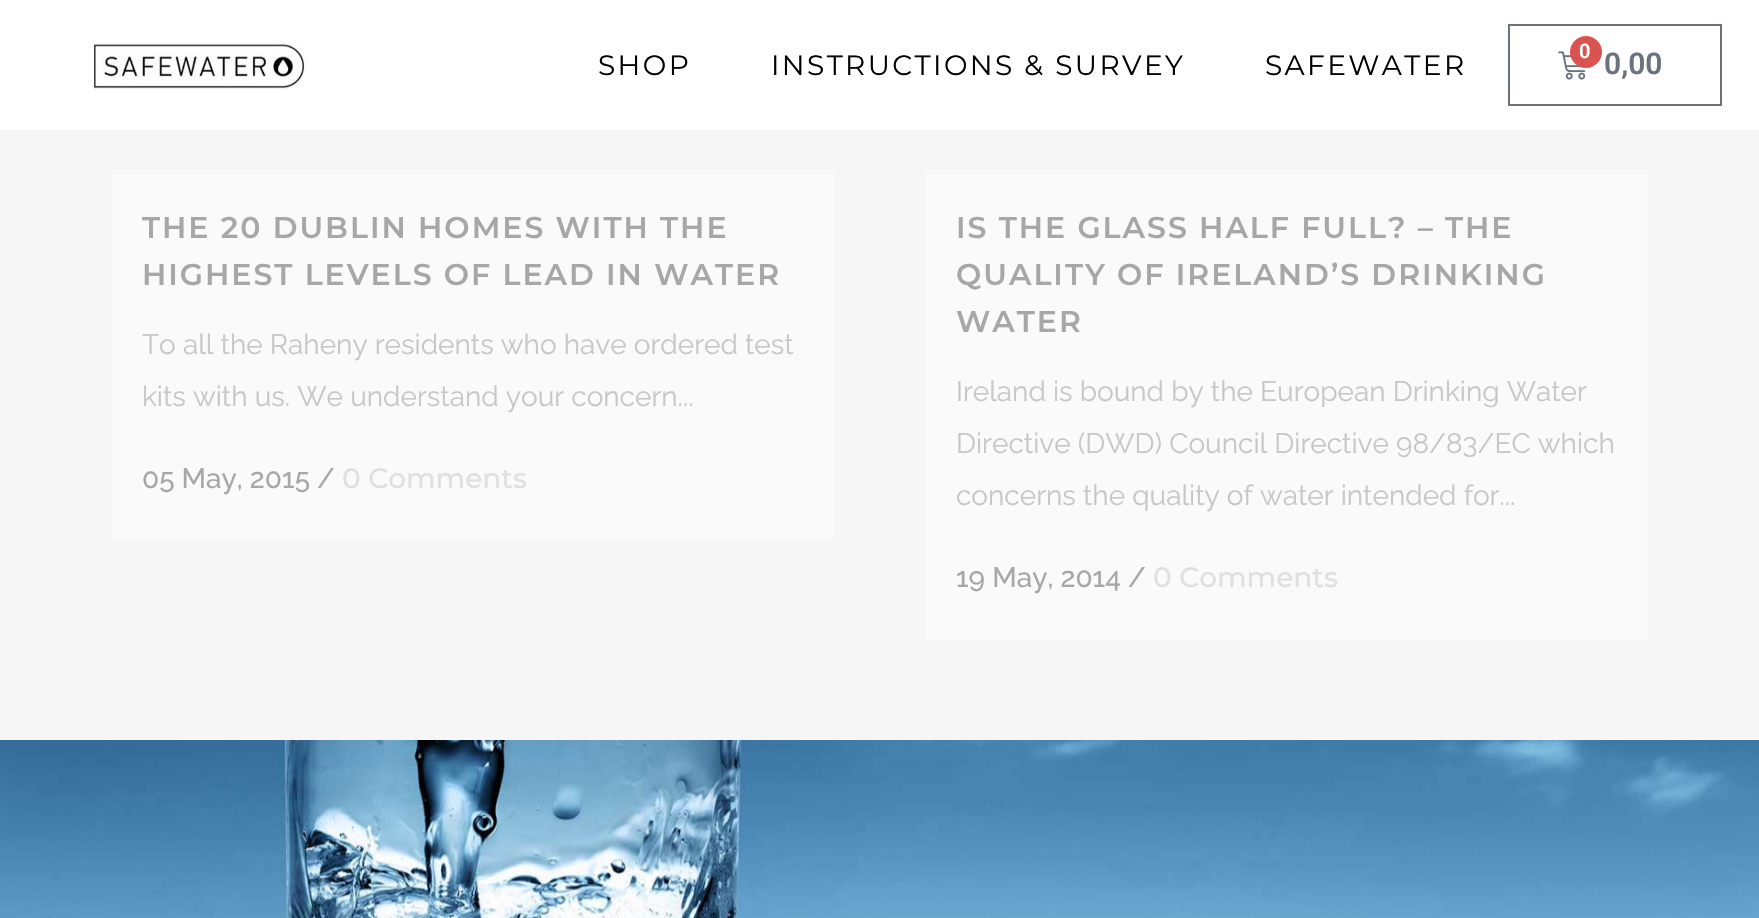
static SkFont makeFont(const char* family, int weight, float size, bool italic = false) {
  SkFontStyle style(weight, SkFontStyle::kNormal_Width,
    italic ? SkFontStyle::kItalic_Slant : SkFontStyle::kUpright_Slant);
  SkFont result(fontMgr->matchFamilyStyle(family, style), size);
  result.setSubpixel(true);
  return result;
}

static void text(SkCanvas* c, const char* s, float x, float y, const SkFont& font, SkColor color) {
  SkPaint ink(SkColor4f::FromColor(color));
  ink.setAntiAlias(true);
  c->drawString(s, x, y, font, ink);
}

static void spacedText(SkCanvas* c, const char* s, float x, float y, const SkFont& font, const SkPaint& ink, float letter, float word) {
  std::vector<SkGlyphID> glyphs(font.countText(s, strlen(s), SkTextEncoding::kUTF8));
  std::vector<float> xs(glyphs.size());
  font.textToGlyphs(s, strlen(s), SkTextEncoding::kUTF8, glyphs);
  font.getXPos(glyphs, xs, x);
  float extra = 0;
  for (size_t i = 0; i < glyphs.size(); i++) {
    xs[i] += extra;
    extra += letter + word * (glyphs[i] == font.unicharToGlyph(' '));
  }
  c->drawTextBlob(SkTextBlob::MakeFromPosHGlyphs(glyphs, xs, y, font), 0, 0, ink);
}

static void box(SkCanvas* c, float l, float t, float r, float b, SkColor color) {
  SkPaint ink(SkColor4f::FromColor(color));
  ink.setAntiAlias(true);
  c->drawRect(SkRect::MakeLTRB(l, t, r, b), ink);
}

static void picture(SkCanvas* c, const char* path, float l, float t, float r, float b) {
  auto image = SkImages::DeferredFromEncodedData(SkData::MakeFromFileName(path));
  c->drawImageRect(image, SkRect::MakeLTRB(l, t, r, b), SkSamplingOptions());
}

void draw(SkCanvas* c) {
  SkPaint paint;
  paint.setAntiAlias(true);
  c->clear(0xfff6f6f6);
  box(c, 0, 0, 1759, 130, 0xffffffff);
  picture(c, "img_01.png", 93, 43, 306, 90);
  SkFont face1 = makeFont("Montserrat", 400, 28);
  paint.setColor(0xff000000);
  spacedText(c, "SHOP", 598, 75, face1, paint, 2.4f, 0);
  spacedText(c, "INSTRUCTIONS & SURVEY", 771, 75, face1, paint, 2.4f, 0);
  spacedText(c, "SAFEWATER", 1265, 75, face1, paint, 2.4f, 0);
  paint.setStyle(SkPaint::kStroke_Style);
  paint.setStrokeWidth(2);
  paint.setColor(0xff69727d);
  c->drawRect(SkRect::MakeLTRB(1509, 25, 1721, 105), paint);
  picture(c, "img_02.png", 1558, 51, 1586, 80);
  paint.setStyle(SkPaint::kFill_Style);
  paint.setColor(0xffd9534f);
  c->drawCircle(1586, 52, 16, paint);
  SkFont face2 = makeFont("Roboto", 600, 20);
  text(c, "0", 1579, 58, face2, 0xffffffff);
  SkFont face3 = makeFont("Roboto", 600, 30);
  text(c, "0,00", 1604, 74, face3, 0xff69727d);
  box(c, 112, 170, 834, 540, 0xfffafafa);
  SkFont face4 = makeFont("Montserrat", 600, 30);
  paint.setColor(0xffa7a7a7);
  spacedText(c, "THE 20 DUBLIN HOMES WITH THE", 142, 238, face4, paint, 2, 0);
  spacedText(c, "HIGHEST LEVELS OF LEAD IN WATER", 142, 285, face4, paint, 2, 0);
  SkFont face5 = makeFont("Raleway", 100, 28);
  text(c, "To all the Raheny residents who have ordered test", 142, 354, face5, 0xffc7c7c7);
  text(c, "kits with us. We understand your concern...", 142, 406, face5, 0xffc7c7c7);
  SkFont face6 = makeFont("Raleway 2", 100, 28);
  text(c, "05 May, 2015 /", 142, 488, face6, 0xffa7a7a7);
  SkFont face7 = makeFont("Montserrat", 500, 28);
  text(c, "0 Comments", 342, 488, face7, 0xffe0e0e0);
  box(c, 926, 170, 1648, 640, 0xfffafafa);
  spacedText(c, "IS THE GLASS HALF FULL? – THE", 956, 238, face4, paint, 2, 0);
  spacedText(c, "QUALITY OF IRELAND’S DRINKING", 956, 285, face4, paint, 2, 0);
  spacedText(c, "WATER", 956, 332, face4, paint, 2, 0);
  text(c, "Ireland is bound by the European Drinking Water", 956, 401, face5, 0xffc7c7c7);
  text(c, "Directive (DWD) Council Directive 98/83/EC which", 956, 453, face5, 0xffc7c7c7);
  text(c, "concerns the quality of water intended for...", 956, 505, face5, 0xffc7c7c7);
  text(c, "19 May, 2014 /", 956, 587, face6, 0xffa7a7a7);
  text(c, "0 Comments", 1153, 587, face7, 0xffe0e0e0);
  picture(c, "img_03.png", 0, 740, 1759, 918);
}
